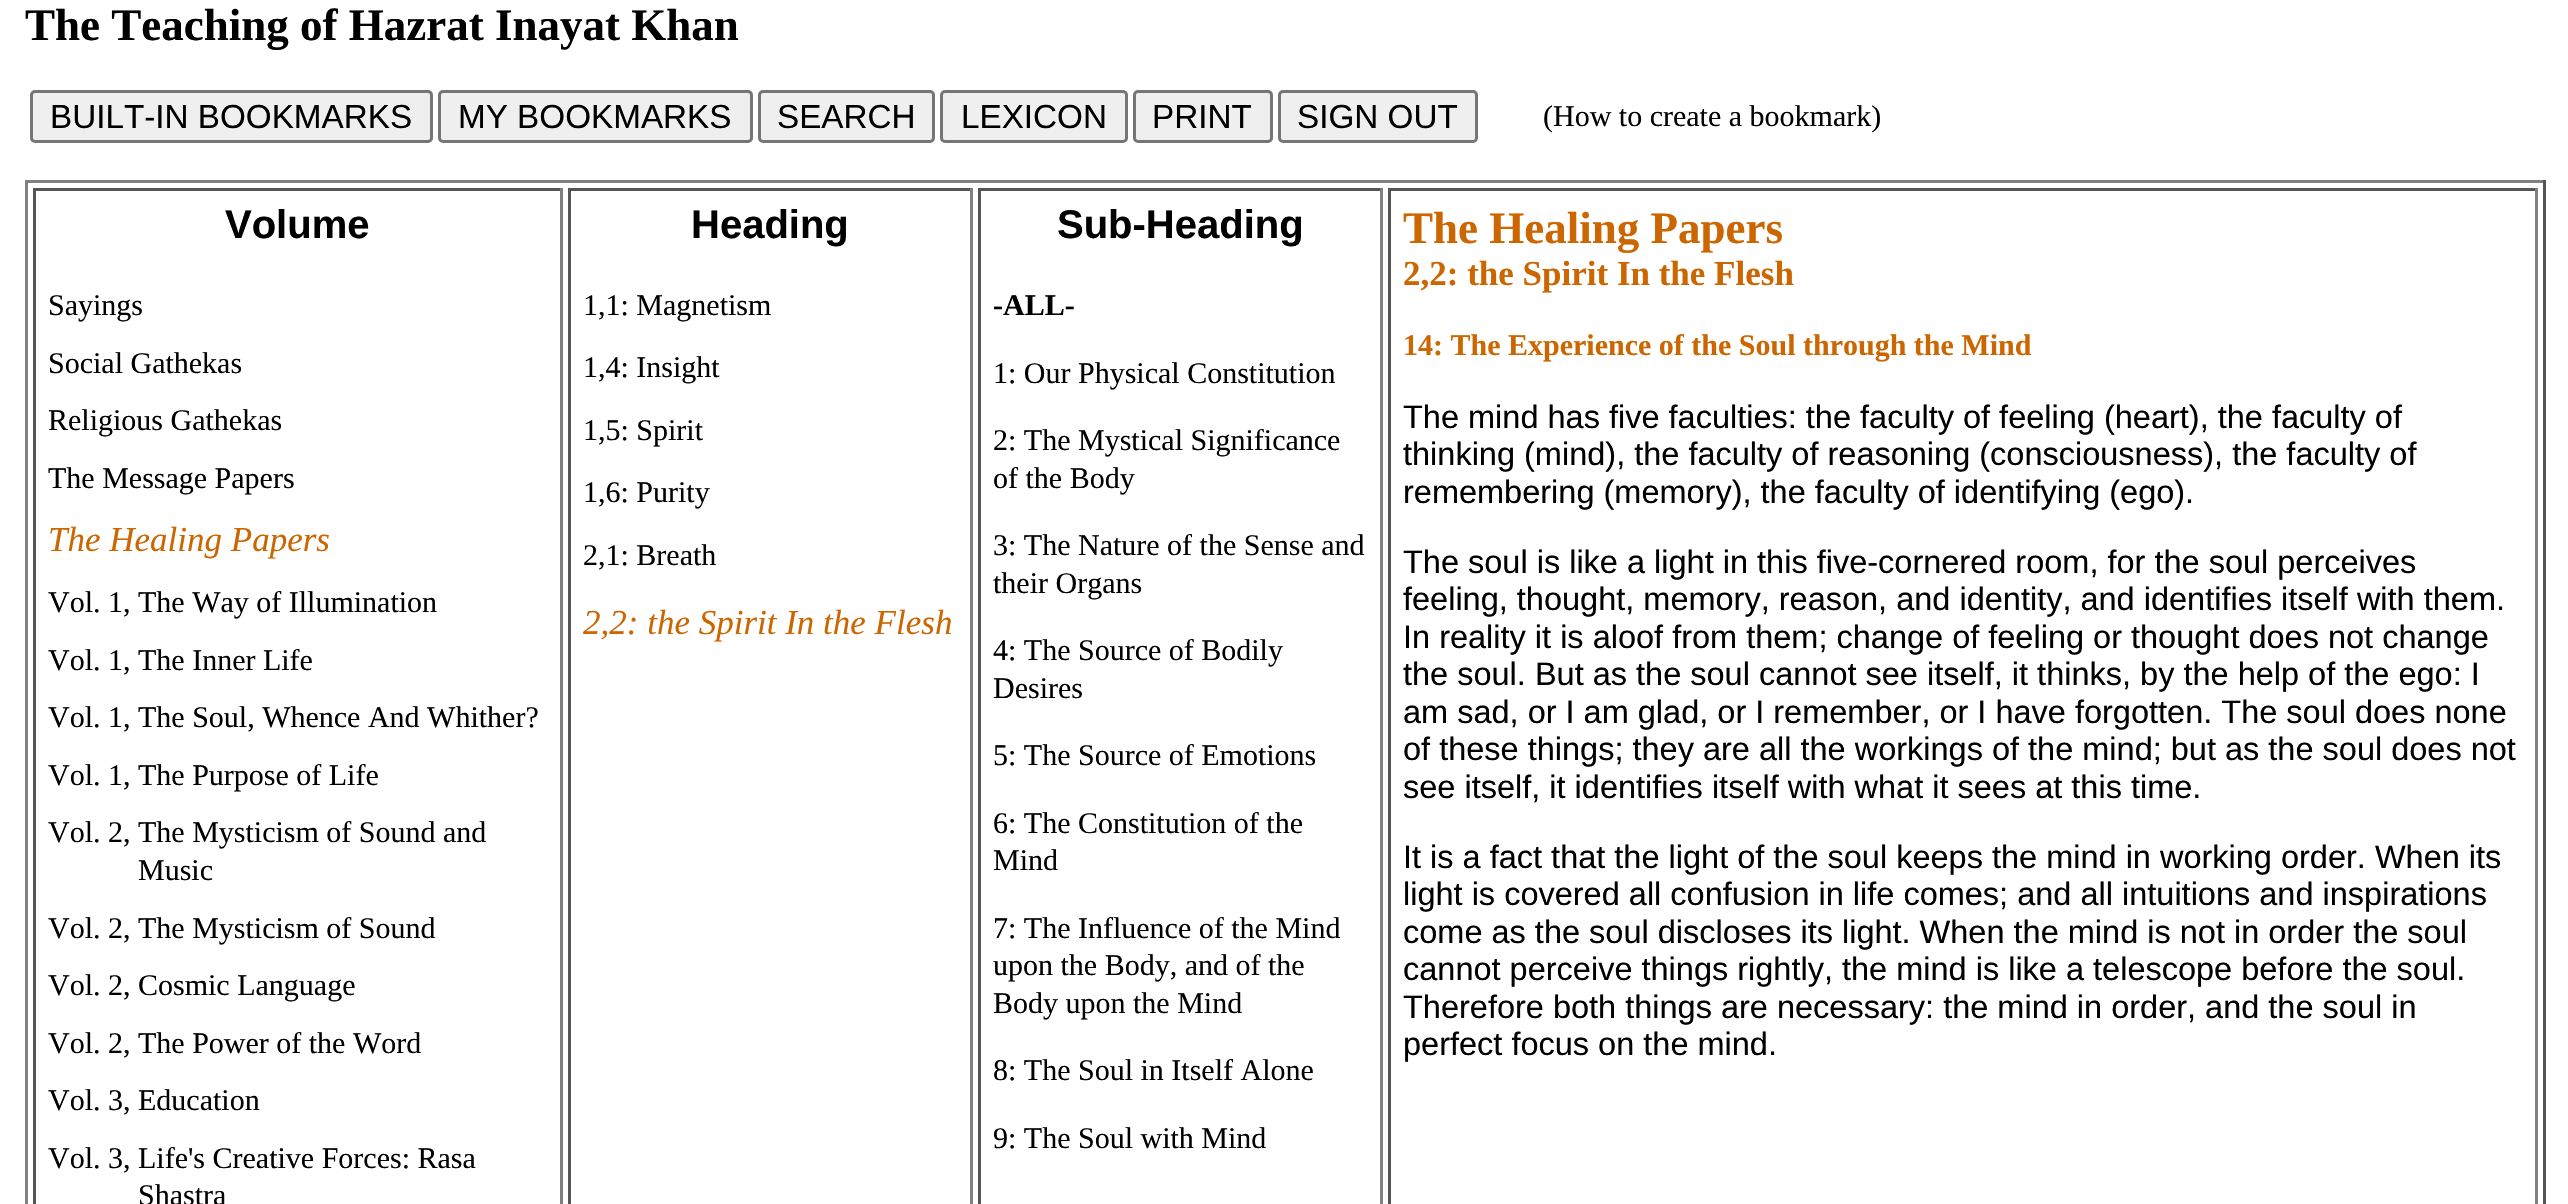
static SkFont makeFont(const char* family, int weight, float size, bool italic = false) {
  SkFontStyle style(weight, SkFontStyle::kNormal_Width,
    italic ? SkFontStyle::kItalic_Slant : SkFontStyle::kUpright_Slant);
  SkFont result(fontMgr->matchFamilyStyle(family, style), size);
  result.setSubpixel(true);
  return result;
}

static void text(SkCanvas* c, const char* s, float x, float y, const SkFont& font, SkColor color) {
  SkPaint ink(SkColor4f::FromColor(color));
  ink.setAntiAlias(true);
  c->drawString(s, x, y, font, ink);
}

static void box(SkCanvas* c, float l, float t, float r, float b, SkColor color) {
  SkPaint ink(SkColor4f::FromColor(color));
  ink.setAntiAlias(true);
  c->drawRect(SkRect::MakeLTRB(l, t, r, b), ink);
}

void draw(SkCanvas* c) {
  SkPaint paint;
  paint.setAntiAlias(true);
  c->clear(0xffffffff);
  SkFont face1 = makeFont("Liberation Serif", 700, 45);
  text(c, "The Teaching of Hazrat Inayat Khan", 25, 40, face1, 0xff000000);
  paint.setColor(0xffefefef);
  c->drawRoundRect(SkRect::MakeLTRB(31.5f, 91.5f, 431.5f, 141.5f), 3.5f, 3.5f, paint);
  paint.setStyle(SkPaint::kStroke_Style);
  paint.setStrokeWidth(3);
  paint.setColor(0xff767676);
  c->drawRoundRect(SkRect::MakeLTRB(31.5f, 91.5f, 431.5f, 141.5f), 3.5f, 3.5f, paint);
  SkFont face2 = makeFont("Liberation Sans", 400, 33.25f);
  text(c, "BUILT-IN BOOKMARKS", 50, 128, face2, 0xff000000);
  paint.setStyle(SkPaint::kFill_Style);
  paint.setColor(0xffefefef);
  c->drawRoundRect(SkRect::MakeLTRB(439.5f, 91.5f, 751.5f, 141.5f), 3.5f, 3.5f, paint);
  paint.setStyle(SkPaint::kStroke_Style);
  paint.setColor(0xff767676);
  c->drawRoundRect(SkRect::MakeLTRB(439.5f, 91.5f, 751.5f, 141.5f), 3.5f, 3.5f, paint);
  text(c, "MY BOOKMARKS", 458, 128, face2, 0xff000000);
  paint.setStyle(SkPaint::kFill_Style);
  paint.setColor(0xffefefef);
  c->drawRoundRect(SkRect::MakeLTRB(759.5f, 91.5f, 933.5f, 141.5f), 3.5f, 3.5f, paint);
  paint.setStyle(SkPaint::kStroke_Style);
  paint.setColor(0xff767676);
  c->drawRoundRect(SkRect::MakeLTRB(759.5f, 91.5f, 933.5f, 141.5f), 3.5f, 3.5f, paint);
  text(c, "SEARCH", 777, 128, face2, 0xff000000);
  paint.setStyle(SkPaint::kFill_Style);
  paint.setColor(0xffefefef);
  c->drawRoundRect(SkRect::MakeLTRB(941.5f, 91.5f, 1126.5f, 141.5f), 3.5f, 3.5f, paint);
  paint.setStyle(SkPaint::kStroke_Style);
  paint.setColor(0xff767676);
  c->drawRoundRect(SkRect::MakeLTRB(941.5f, 91.5f, 1126.5f, 141.5f), 3.5f, 3.5f, paint);
  text(c, "LEXICON", 961, 128, face2, 0xff000000);
  paint.setStyle(SkPaint::kFill_Style);
  paint.setColor(0xffefefef);
  c->drawRoundRect(SkRect::MakeLTRB(1134.5f, 91.5f, 1271.5f, 141.5f), 3.5f, 3.5f, paint);
  paint.setStyle(SkPaint::kStroke_Style);
  paint.setColor(0xff767676);
  c->drawRoundRect(SkRect::MakeLTRB(1134.5f, 91.5f, 1271.5f, 141.5f), 3.5f, 3.5f, paint);
  text(c, "PRINT", 1152, 128, face2, 0xff000000);
  paint.setStyle(SkPaint::kFill_Style);
  paint.setColor(0xffefefef);
  c->drawRoundRect(SkRect::MakeLTRB(1279.5f, 91.5f, 1476.5f, 141.5f), 3.5f, 3.5f, paint);
  paint.setStyle(SkPaint::kStroke_Style);
  paint.setColor(0xff767676);
  c->drawRoundRect(SkRect::MakeLTRB(1279.5f, 91.5f, 1476.5f, 141.5f), 3.5f, 3.5f, paint);
  text(c, "SIGN OUT", 1297, 128, face2, 0xff000000);
  SkFont face3 = makeFont("Liberation Serif", 400, 30);
  text(c, "(How to create a bookmark)", 1543, 126, face3, 0xff000000);
  box(c, 25, 180, 2545, 183, 0xff808080);
  box(c, 2543, 180, 2546, 1204, 0xff555555);
  box(c, 25, 180, 28, 1204, 0xff808080);
  box(c, 33, 188, 563, 191, 0xff555555);
  box(c, 560, 188, 563, 1204, 0xff808080);
  box(c, 33, 188, 36, 1204, 0xff555555);
  SkFont face4 = makeFont("Liberation Sans", 700, 40);
  text(c, "Volume", 225, 238, face4, 0xff000000);
  text(c, "Sayings", 48, 315, face3, 0xff000000);
  text(c, "Social Gathekas", 48, 373, face3, 0xff000000);
  text(c, "Religious Gathekas", 48, 430, face3, 0xff000000);
  text(c, "The Message Papers", 48, 488, face3, 0xff000000);
  SkFont face5 = makeFont("Liberation Serif", 400, 35, true);
  text(c, "The Healing Papers", 48, 551, face5, 0xffcc6600);
  text(c, "Vol. 1, The Way of Illumination", 48, 612, face3, 0xff000000);
  text(c, "Vol. 1, The Inner Life", 48, 670, face3, 0xff000000);
  text(c, "Vol. 1, The Soul, Whence And Whither?", 48, 727, face3, 0xff000000);
  text(c, "Vol. 1, The Purpose of Life", 48, 785, face3, 0xff000000);
  text(c, "Vol. 2, The Mysticism of Sound and", 48, 842, face3, 0xff000000);
  text(c, "Music", 138, 880, face3, 0xff000000);
  text(c, "Vol. 2, The Mysticism of Sound", 48, 938, face3, 0xff000000);
  text(c, "Vol. 2, Cosmic Language", 48, 995, face3, 0xff000000);
  text(c, "Vol. 2, The Power of the Word", 48, 1053, face3, 0xff000000);
  text(c, "Vol. 3, Education", 48, 1110, face3, 0xff000000);
  text(c, "Vol. 3, Life's Creative Forces: Rasa", 48, 1168, face3, 0xff000000);
  text(c, "Shastra", 138, 1205, face3, 0xff000000);
  box(c, 568, 188, 973, 191, 0xff555555);
  box(c, 970, 188, 973, 1204, 0xff808080);
  box(c, 568, 188, 571, 1204, 0xff555555);
  text(c, "Heading", 691, 238, face4, 0xff000000);
  text(c, "1,1: Magnetism", 583, 315, face3, 0xff000000);
  text(c, "1,4: Insight", 583, 377, face3, 0xff000000);
  text(c, "1,5: Spirit", 583, 440, face3, 0xff000000);
  text(c, "1,6: Purity", 583, 502, face3, 0xff000000);
  text(c, "2,1: Breath", 583, 565, face3, 0xff000000);
  text(c, "2,2: the Spirit In the Flesh", 583, 634, face5, 0xffcc6600);
  box(c, 978, 188, 1383, 191, 0xff555555);
  box(c, 1380, 188, 1383, 1204, 0xff808080);
  box(c, 978, 188, 981, 1204, 0xff555555);
  text(c, "Sub-Heading", 1057, 238, face4, 0xff000000);
  SkFont face6 = makeFont("Liberation Serif", 700, 30);
  text(c, "-ALL-", 993, 315, face6, 0xff000000);
  text(c, "1: Our Physical Constitution", 993, 383, face3, 0xff000000);
  text(c, "2: The Mystical Significance", 993, 450, face3, 0xff000000);
  text(c, "of the Body", 993, 488, face3, 0xff000000);
  text(c, "3: The Nature of the Sense and", 993, 555, face3, 0xff000000);
  text(c, "their Organs", 993, 593, face3, 0xff000000);
  text(c, "4: The Source of Bodily", 993, 660, face3, 0xff000000);
  text(c, "Desires", 993, 698, face3, 0xff000000);
  text(c, "5: The Source of Emotions", 993, 765, face3, 0xff000000);
  text(c, "6: The Constitution of the", 993, 833, face3, 0xff000000);
  text(c, "Mind", 993, 870, face3, 0xff000000);
  text(c, "7: The Influence of the Mind", 993, 938, face3, 0xff000000);
  text(c, "upon the Body, and of the", 993, 975, face3, 0xff000000);
  text(c, "Body upon the Mind", 993, 1013, face3, 0xff000000);
  text(c, "8: The Soul in Itself Alone", 993, 1080, face3, 0xff000000);
  text(c, "9: The Soul with Mind", 993, 1148, face3, 0xff000000);
  box(c, 1388, 188, 2538, 191, 0xff555555);
  box(c, 2535, 188, 2538, 1204, 0xff808080);
  box(c, 1388, 188, 1391, 1204, 0xff555555);
  text(c, "The Healing Papers", 1403, 243, face1, 0xffcc6600);
  SkFont face7 = makeFont("Liberation Serif", 700, 35);
  text(c, "2,2: the Spirit In the Flesh", 1403, 285, face7, 0xffcc6600);
  text(c, "14: The Experience of the Soul through the Mind", 1403, 355, face6, 0xffcc6600);
  SkFont face8 = makeFont("Liberation Sans", 400, 32.5f);
  text(c, "The mind has five faculties: the faculty of feeling (heart), the faculty of", 1403, 428, face8, 0xff000000);
  text(c, "thinking (mind), the faculty of reasoning (consciousness), the faculty of", 1403, 465, face8, 0xff000000);
  text(c, "remembering (memory), the faculty of identifying (ego).", 1403, 503, face8, 0xff000000);
  text(c, "The soul is like a light in this five-cornered room, for the soul perceives", 1403, 573, face8, 0xff000000);
  text(c, "feeling, thought, memory, reason, and identity, and identifies itself with them.", 1403, 610, face8, 0xff000000);
  text(c, "In reality it is aloof from them; change of feeling or thought does not change", 1403, 648, face8, 0xff000000);
  text(c, "the soul. But as the soul cannot see itself, it thinks, by the help of the ego: I", 1403, 685, face8, 0xff000000);
  text(c, "am sad, or I am glad, or I remember, or I have forgotten. The soul does none", 1403, 723, face8, 0xff000000);
  text(c, "of these things; they are all the workings of the mind; but as the soul does not", 1403, 760, face8, 0xff000000);
  text(c, "see itself, it identifies itself with what it sees at this time.", 1403, 798, face8, 0xff000000);
  text(c, "It is a fact that the light of the soul keeps the mind in working order. When its", 1403, 868, face8, 0xff000000);
  text(c, "light is covered all confusion in life comes; and all intuitions and inspirations", 1403, 905, face8, 0xff000000);
  text(c, "come as the soul discloses its light. When the mind is not in order the soul", 1403, 943, face8, 0xff000000);
  text(c, "cannot perceive things rightly, the mind is like a telescope before the soul.", 1403, 980, face8, 0xff000000);
  text(c, "Therefore both things are necessary: the mind in order, and the soul in", 1403, 1018, face8, 0xff000000);
  text(c, "perfect focus on the mind.", 1403, 1055, face8, 0xff000000);
}
